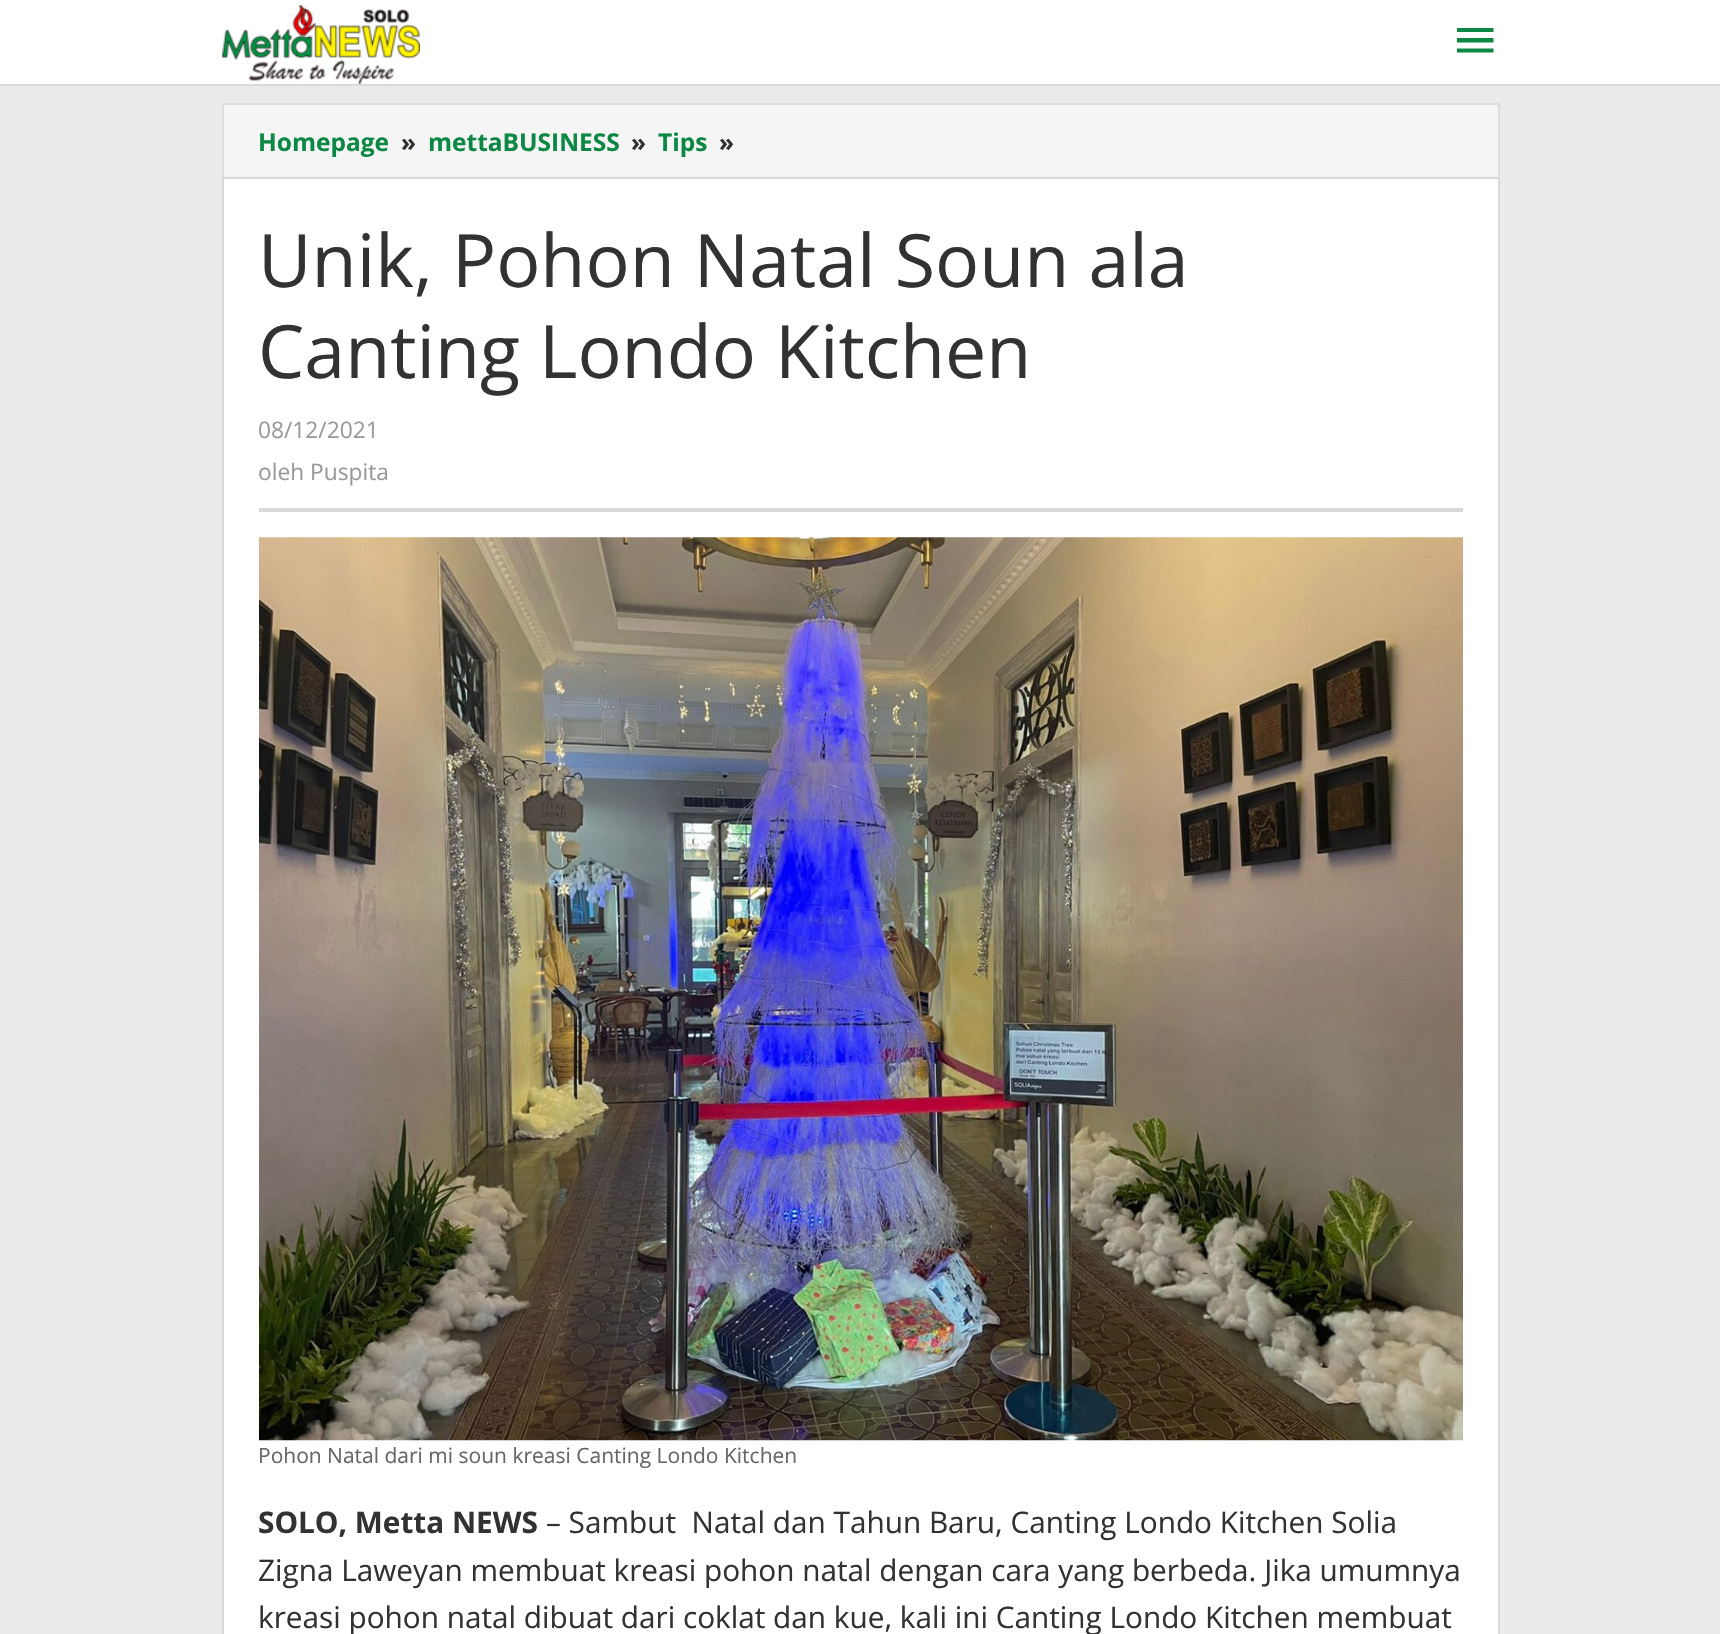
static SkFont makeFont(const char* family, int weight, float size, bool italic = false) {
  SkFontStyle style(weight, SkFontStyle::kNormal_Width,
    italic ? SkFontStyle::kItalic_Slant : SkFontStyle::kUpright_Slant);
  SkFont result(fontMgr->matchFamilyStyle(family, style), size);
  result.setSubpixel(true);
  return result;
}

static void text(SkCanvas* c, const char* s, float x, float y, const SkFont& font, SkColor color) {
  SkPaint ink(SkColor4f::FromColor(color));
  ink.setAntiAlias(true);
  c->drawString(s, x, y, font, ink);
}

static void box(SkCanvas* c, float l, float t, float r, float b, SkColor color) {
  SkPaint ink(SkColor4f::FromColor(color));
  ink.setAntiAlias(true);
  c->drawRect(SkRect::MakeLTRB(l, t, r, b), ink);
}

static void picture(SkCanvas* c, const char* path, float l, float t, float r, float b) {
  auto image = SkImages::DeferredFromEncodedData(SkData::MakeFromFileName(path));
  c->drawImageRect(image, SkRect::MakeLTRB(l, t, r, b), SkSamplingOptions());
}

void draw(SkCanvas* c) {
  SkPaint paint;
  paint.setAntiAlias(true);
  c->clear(0xffebebeb);
  box(c, 0, 0, 1720, 84, 0xffffffff);
  box(c, 0, 84, 1720, 86, 0xffd9d9d9);
  picture(c, "img_01.png", 222, 5, 420, 84);
  paint.setColor(0xff0b8843);
  c->drawPath(SkPathBuilder().moveTo(1457, 52.5f).lineTo(1493.5f, 52.5f).lineTo(1493.5f, 48.5f).lineTo(1457, 48.5f).close().moveTo(1457, 42.5f).lineTo(1493.5f, 42.5f).lineTo(1493.5f, 38).lineTo(1457, 38).close().moveTo(1457, 28).lineTo(1457, 32).lineTo(1493.5f, 32).lineTo(1493.5f, 28).close().detach(), paint);
  paint.setColor(0xfff5f5f5);
  c->drawRect(SkRect::MakeLTRB(223, 104, 1499, 178), paint);
  paint.setStyle(SkPaint::kStroke_Style);
  paint.setStrokeWidth(2);
  paint.setColor(0xffdddddd);
  c->drawRect(SkRect::MakeLTRB(223, 104, 1499, 178), paint);
  SkFont face1 = makeFont("Open Sans", 700, 24.5f);
  text(c, "Homepage", 258, 151, face1, 0xff0b8843);
  text(c, "»", 401, 151, face1, 0xff323233);
  text(c, "mettaBUSINESS", 428, 151, face1, 0xff0b8843);
  text(c, "»", 631, 151, face1, 0xff323233);
  text(c, "Tips", 658, 151, face1, 0xff0b8843);
  text(c, "»", 719, 151, face1, 0xff323233);
  paint.setStyle(SkPaint::kFill_Style);
  paint.setColor(0xffffffff);
  c->drawRect(SkRect::MakeLTRB(223, 178, 1499, 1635), paint);
  paint.setStyle(SkPaint::kStroke_Style);
  paint.setColor(0xffd9d9d9);
  c->drawRect(SkRect::MakeLTRB(223, 178, 1499, 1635), paint);
  box(c, 259, 508, 1463, 512, 0xffd9d9d9);
  SkFont face2 = makeFont("Open Sans", 400, 73.5f);
  text(c, "Unik, Pohon Natal Soun ala", 258, 287, face2, 0xff323233);
  text(c, "Canting Londo Kitchen", 258, 378, face2, 0xff323233);
  SkFont face3 = makeFont("Open Sans", 400, 22.75f);
  text(c, "08/12/2021", 258, 438, face3, 0xff999999);
  text(c, "oleh Puspita", 258, 480, face3, 0xff999999);
  picture(c, "img_02.png", 259, 537, 1463, 1441);
  SkFont face4 = makeFont("Open Sans", 400, 21);
  text(c, "Pohon Natal dari mi soun kreasi Canting Londo Kitchen", 258, 1463, face4, 0xff666666);
  SkFont face5 = makeFont("Open Sans", 700, 29.75f);
  text(c, "SOLO, Metta NEWS", 258, 1533, face5, 0xff323233);
  SkFont face6 = makeFont("Open Sans", 400, 29.75f);
  text(c, "– Sambut  Natal dan Tahun Baru, Canting Londo Kitchen Solia", 546, 1533, face6, 0xff323233);
  text(c, "Zigna Laweyan membuat kreasi pohon natal dengan cara yang berbeda. Jika umumnya", 258, 1581, face6, 0xff323233);
  text(c, "kreasi pohon natal dibuat dari coklat dan kue, kali ini Canting Londo Kitchen membuat", 258, 1628, face6, 0xff323233);
}
